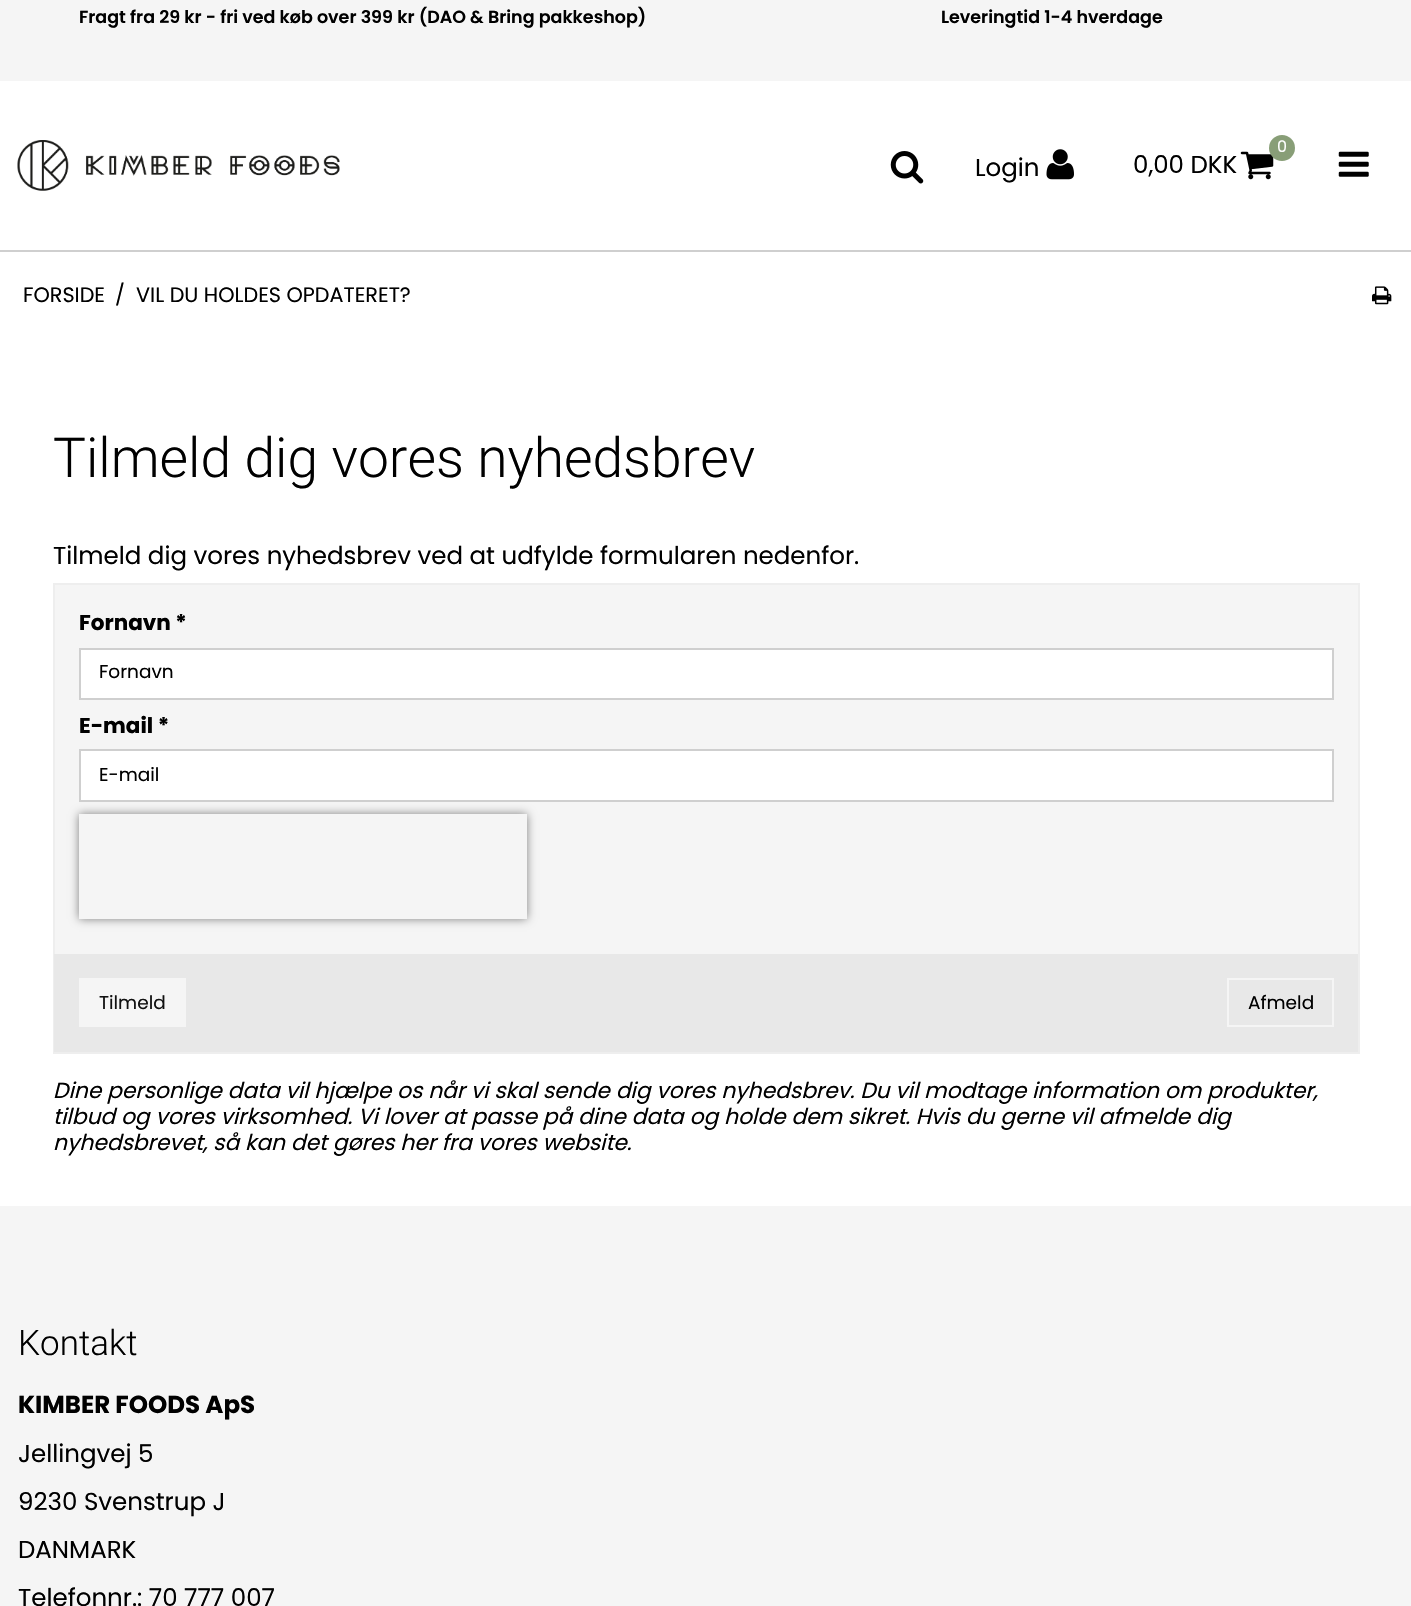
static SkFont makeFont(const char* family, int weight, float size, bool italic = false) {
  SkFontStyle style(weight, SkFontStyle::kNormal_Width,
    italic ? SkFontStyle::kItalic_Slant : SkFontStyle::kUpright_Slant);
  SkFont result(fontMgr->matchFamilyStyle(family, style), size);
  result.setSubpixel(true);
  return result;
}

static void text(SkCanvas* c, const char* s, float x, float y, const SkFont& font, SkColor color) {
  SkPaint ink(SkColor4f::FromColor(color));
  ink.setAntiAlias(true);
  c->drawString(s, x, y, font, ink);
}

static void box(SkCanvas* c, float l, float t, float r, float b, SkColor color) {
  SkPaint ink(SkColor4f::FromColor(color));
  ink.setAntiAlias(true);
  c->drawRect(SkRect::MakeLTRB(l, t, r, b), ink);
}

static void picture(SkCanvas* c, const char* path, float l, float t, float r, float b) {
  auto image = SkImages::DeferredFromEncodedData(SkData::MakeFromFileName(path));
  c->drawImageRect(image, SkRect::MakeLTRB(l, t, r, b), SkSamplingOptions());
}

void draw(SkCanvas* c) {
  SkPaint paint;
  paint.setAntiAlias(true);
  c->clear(0xffffffff);
  box(c, 0, 0, 1411, 81, 0xfff5f5f5);
  SkFont face1 = makeFont("Poppins", 600, 17.5f);
  text(c, "Fragt fra 29 kr - fri ved køb over 399 kr (DAO & Bring pakkeshop)", 79, 23, face1, 0xff000000);
  text(c, "Leveringtid 1-4 hverdage", 941, 23, face1, 0xff000000);
  box(c, 0, 250, 1411, 252, 0xffcfcfcf);
  picture(c, "img_01.png", 17, 140, 340, 191);
  picture(c, "img_02.png", 890, 151, 924, 184);
  SkFont face2 = makeFont("Poppins", 400, 24.5f);
  text(c, "Login", 975, 176, face2, 0xff000000);
  picture(c, "img_03.png", 1046, 149, 1074, 180);
  picture(c, "img_04.png", 1240, 151, 1274, 180);
  paint.setColor(0xff889e77);
  c->drawCircle(1282, 148, 13, paint);
  SkFont face3 = makeFont("Poppins", 400, 16);
  text(c, "0", 1277, 152, face3, 0xffffffff);
  text(c, "0,00 DKK", 1133, 173, face2, 0xff000000);
  picture(c, "img_05.png", 1338, 151, 1369, 177);
  SkFont face4 = makeFont("Poppins", 400, 20.75f);
  text(c, "FORSIDE", 23, 302, face4, 0xff000000);
  text(c, "/", 115, 302, face4, 0xff000000);
  text(c, "VIL DU HOLDES OPDATERET?", 136, 302, face4, 0xff000000);
  picture(c, "img_06.png", 1372, 286, 1392, 305);
  SkFont face5 = makeFont("Roboto", 300, 55.1f);
  text(c, "Tilmeld dig vores nyhedsbrev", 53, 477, face5, 0xff000000);
  text(c, "Tilmeld dig vores nyhedsbrev ved at udfylde formularen nedenfor.", 53, 564, face2, 0xff000000);
  box(c, 55, 585, 1358, 954, 0xfff5f5f5);
  paint.setStyle(SkPaint::kStroke_Style);
  paint.setStrokeWidth(2);
  paint.setColor(0xffeeeeee);
  c->drawRect(SkRect::MakeLTRB(54, 584, 1359, 1053), paint);
  SkFont face6 = makeFont("Poppins", 700, 21.5f);
  text(c, "Fornavn *", 79, 630, face6, 0xff000000);
  paint.setStyle(SkPaint::kFill_Style);
  paint.setColor(0xffffffff);
  c->drawRect(SkRect::MakeLTRB(80, 649, 1333, 699), paint);
  paint.setStyle(SkPaint::kStroke_Style);
  paint.setColor(0xffcfcfcf);
  c->drawRect(SkRect::MakeLTRB(80, 649, 1333, 699), paint);
  SkFont face7 = makeFont("Poppins", 400, 18.5f);
  text(c, "Fornavn", 99, 678, face7, 0xff000000);
  text(c, "E-mail *", 79, 733, face6, 0xff000000);
  c->save();
  c->clipPath(SkPathBuilder(SkPathFillType::kEvenOdd).moveTo(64, 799).lineTo(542, 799).lineTo(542, 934).lineTo(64, 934).close().moveTo(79, 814).lineTo(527, 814).lineTo(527, 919).lineTo(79, 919).close().detach(), true);
  paint.setStyle(SkPaint::kFill_Style);
  paint.setColor(0xff808080);
  paint.setMaskFilter(SkMaskFilter::MakeBlur(kNormal_SkBlurStyle, 4.5f));
  c->drawRect(SkRect::MakeLTRB(79, 814, 527, 919), paint);
  paint.setMaskFilter(nullptr);
  c->restore();
  paint.setColor(0xffffffff);
  c->drawRect(SkRect::MakeLTRB(80, 750, 1333, 801), paint);
  paint.setStyle(SkPaint::kStroke_Style);
  paint.setColor(0xffcfcfcf);
  c->drawRect(SkRect::MakeLTRB(80, 750, 1333, 801), paint);
  text(c, "E-mail", 99, 781, face7, 0xff000000);
  box(c, 54, 954, 1358, 1052, 0xffe8e8e8);
  box(c, 79, 978, 186, 1027, 0xfff5f5f5);
  text(c, "Tilmeld", 99, 1009, face7, 0xff111111);
  paint.setColor(0xfff5f5f5);
  c->drawRect(SkRect::MakeLTRB(1228, 979, 1333, 1026), paint);
  text(c, "Afmeld", 1248, 1009, face7, 0xff000000);
  SkFont face8 = makeFont("Poppins", 400, 21.8f, true);
  text(c, "Dine personlige data vil hjælpe os når vi skal sende dig vores nyhedsbrev. Du vil modtage information om produkter,", 53, 1098, face8, 0xff000000);
  text(c, "tilbud og vores virksomhed. Vi lover at passe på dine data og holde dem sikret. Hvis du gerne vil afmelde dig", 53, 1124, face8, 0xff000000);
  text(c, "nyhedsbrevet, så kan det gøres her fra vores website.", 53, 1150, face8, 0xff000000);
  box(c, 0, 1206, 1411, 1606, 0xfff5f5f5);
  SkFont face9 = makeFont("Roboto", 300, 35);
  text(c, "Kontakt", 18, 1355, face9, 0xff000000);
  SkFont face10 = makeFont("Poppins", 700, 24.5f);
  text(c, "KIMBER FOODS ApS", 18, 1413, face10, 0xff000000);
  text(c, "Jellingvej 5", 18, 1462, face2, 0xff000000);
  text(c, "9230 Svenstrup J", 18, 1510, face2, 0xff000000);
  text(c, "DANMARK", 18, 1558, face2, 0xff000000);
  text(c, "Telefonnr.: 70 777 007", 18, 1606, face2, 0xff000000);
}
